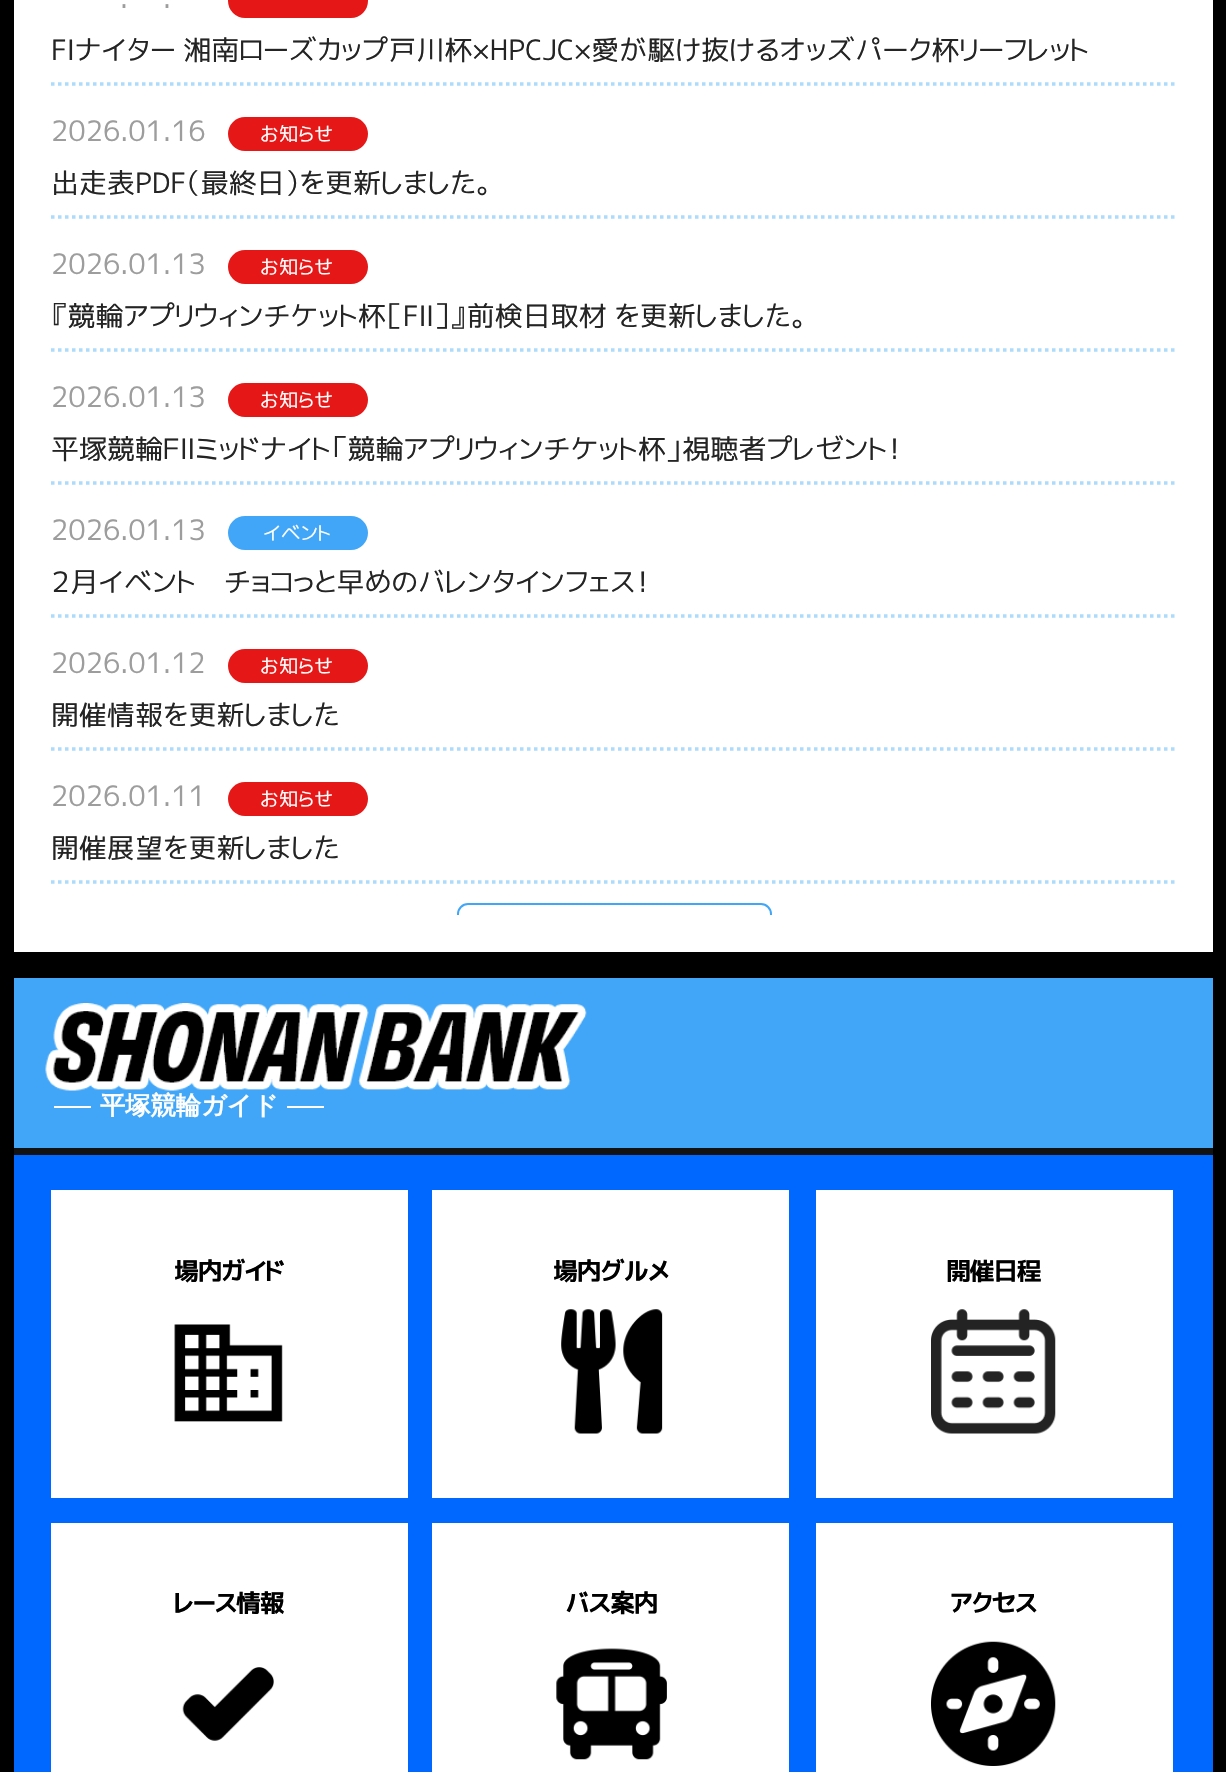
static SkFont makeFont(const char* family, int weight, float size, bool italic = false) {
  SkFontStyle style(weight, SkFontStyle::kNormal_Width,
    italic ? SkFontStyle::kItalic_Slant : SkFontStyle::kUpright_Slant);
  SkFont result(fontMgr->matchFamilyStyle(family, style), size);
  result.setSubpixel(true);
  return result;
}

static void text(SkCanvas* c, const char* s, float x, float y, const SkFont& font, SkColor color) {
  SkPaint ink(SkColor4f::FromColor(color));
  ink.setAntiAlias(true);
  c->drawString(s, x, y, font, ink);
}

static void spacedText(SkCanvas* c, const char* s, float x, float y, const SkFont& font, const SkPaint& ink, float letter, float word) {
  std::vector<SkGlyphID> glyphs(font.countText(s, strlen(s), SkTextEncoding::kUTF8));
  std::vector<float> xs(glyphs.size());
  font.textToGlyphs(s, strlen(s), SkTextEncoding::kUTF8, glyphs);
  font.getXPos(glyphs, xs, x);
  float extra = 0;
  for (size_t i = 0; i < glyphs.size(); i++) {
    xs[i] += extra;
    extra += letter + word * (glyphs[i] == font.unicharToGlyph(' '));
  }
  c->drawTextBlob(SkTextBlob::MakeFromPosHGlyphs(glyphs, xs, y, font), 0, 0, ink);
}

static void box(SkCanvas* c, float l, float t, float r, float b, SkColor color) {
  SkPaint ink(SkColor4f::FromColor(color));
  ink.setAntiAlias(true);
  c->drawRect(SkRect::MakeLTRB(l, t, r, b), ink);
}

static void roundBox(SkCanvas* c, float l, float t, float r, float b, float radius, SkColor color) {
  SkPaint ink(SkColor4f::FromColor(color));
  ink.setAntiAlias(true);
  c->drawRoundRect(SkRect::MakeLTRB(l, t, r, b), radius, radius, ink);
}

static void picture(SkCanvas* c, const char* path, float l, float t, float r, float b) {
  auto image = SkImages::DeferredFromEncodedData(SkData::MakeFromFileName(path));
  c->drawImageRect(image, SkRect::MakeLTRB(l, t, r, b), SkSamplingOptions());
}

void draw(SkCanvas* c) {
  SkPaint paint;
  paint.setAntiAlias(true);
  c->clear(0xff000000);
  box(c, 14, 0, 1213, 952, 0xffffffff);
  SkFont face1 = makeFont("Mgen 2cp", 400, 28);
  text(c, ".", 120, 8, face1, 0xff9e9d9d);
  text(c, ".", 163, 8, face1, 0xff9e9d9d);
  roundBox(c, 228, -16, 368, 18, 17, 0xffe61717);
  paint.setStyle(SkPaint::kStroke_Style);
  paint.setStrokeWidth(3.5f);
  paint.setColor(0xffaddbfb);
  paint.setPathEffect(SkDashPathEffect::Make({{3.5f, 3.5f}}, 0));
  c->drawPath(SkPathBuilder().moveTo(51, 84).lineTo(1176, 84).detach(), paint);
  paint.setPathEffect(nullptr);
  text(c, "FⅠナイター 湘南ローズカップ戸川杯×HPCJC×愛が駆け抜けるオッズパーク杯リーフレット", 51, 60, face1, 0xff242424);
  text(c, "2026.01.16", 51, 141, face1, 0xff9e9d9d);
  roundBox(c, 228, 117, 368, 151, 17, 0xffe61717);
  SkFont face2 = makeFont("Mgen 2cp", 400, 19.5f);
  text(c, "お知らせ", 260, 141, face2, 0xffffffff);
  paint.setPathEffect(SkDashPathEffect::Make({{3.5f, 3.5f}}, 0));
  c->drawPath(SkPathBuilder().moveTo(51, 217).lineTo(1176, 217).detach(), paint);
  paint.setPathEffect(nullptr);
  text(c, "出走表PDF（最終日）を更新しました。", 51, 193, face1, 0xff242424);
  text(c, "2026.01.13", 51, 274, face1, 0xff9e9d9d);
  roundBox(c, 228, 250, 368, 284, 17, 0xffe61717);
  text(c, "お知らせ", 260, 274, face2, 0xffffffff);
  paint.setPathEffect(SkDashPathEffect::Make({{3.5f, 3.5f}}, 0));
  c->drawPath(SkPathBuilder().moveTo(51, 350).lineTo(1176, 350).detach(), paint);
  paint.setPathEffect(nullptr);
  text(c, "『競輪アプリウィンチケット杯［FⅡ］』前検日取材 を更新しました。", 51, 326, face1, 0xff242424);
  text(c, "2026.01.13", 51, 407, face1, 0xff9e9d9d);
  roundBox(c, 228, 383, 368, 417, 17, 0xffe61717);
  text(c, "お知らせ", 260, 407, face2, 0xffffffff);
  paint.setPathEffect(SkDashPathEffect::Make({{3.5f, 3.5f}}, 0));
  c->drawPath(SkPathBuilder().moveTo(51, 483).lineTo(1176, 483).detach(), paint);
  paint.setPathEffect(nullptr);
  text(c, "平塚競輪ＦⅡミッドナイト「競輪アプリウィンチケット杯」視聴者プレゼント！", 51, 459, face1, 0xff242424);
  text(c, "2026.01.13", 51, 540, face1, 0xff9e9d9d);
  roundBox(c, 228, 516, 368, 550, 17, 0xff41a6f8);
  text(c, "イベント", 263, 540, face2, 0xffffffff);
  paint.setPathEffect(SkDashPathEffect::Make({{3.5f, 3.5f}}, 0));
  c->drawPath(SkPathBuilder().moveTo(51, 616).lineTo(1176, 616).detach(), paint);
  paint.setPathEffect(nullptr);
  text(c, "２月イベント　チョコっと早めのバレンタインフェス！", 51, 592, face1, 0xff242424);
  text(c, "2026.01.12", 51, 673, face1, 0xff9e9d9d);
  roundBox(c, 228, 649, 368, 683, 17, 0xffe61717);
  text(c, "お知らせ", 260, 673, face2, 0xffffffff);
  paint.setPathEffect(SkDashPathEffect::Make({{3.5f, 3.5f}}, 0));
  c->drawPath(SkPathBuilder().moveTo(51, 749).lineTo(1176, 749).detach(), paint);
  paint.setPathEffect(nullptr);
  text(c, "開催情報を更新しました", 51, 725, face1, 0xff242424);
  text(c, "2026.01.11", 51, 806, face1, 0xff9e9d9d);
  roundBox(c, 228, 782, 368, 816, 17, 0xffe61717);
  text(c, "お知らせ", 260, 806, face2, 0xffffffff);
  paint.setPathEffect(SkDashPathEffect::Make({{3.5f, 3.5f}}, 0));
  c->drawPath(SkPathBuilder().moveTo(51, 882).lineTo(1176, 882).detach(), paint);
  paint.setPathEffect(nullptr);
  text(c, "開催展望を更新しました", 51, 858, face1, 0xff242424);
  c->save();
  c->clipRect(SkRect::MakeLTRB(51, 0, 1176, 915));
  paint.setStrokeWidth(2);
  paint.setColor(0xff41a6f8);
  c->drawRoundRect(SkRect::MakeLTRB(458, 904, 771, 969), 10, 10, paint);
  c->restore();
  box(c, 14, 1155, 1213, 1772, 0xff0068ff);
  box(c, 14, 978, 1213, 1148, 0xff41a6f8);
  box(c, 14, 1148, 1213, 1155, 0xff121212);
  picture(c, "img_01.png", 45, 1003, 587, 1091);
  box(c, 54, 1106, 91, 1108, 0xffffffff);
  SkFont face3 = makeFont("WenQuanYi Zen Hei", 700, 25.25f);
  text(c, "平塚競輪ガイド", 100, 1114, face3, 0xffffffff);
  box(c, 287, 1106, 324, 1108, 0xffffffff);
  box(c, 51, 1190, 408, 1498, 0xffffffff);
  SkFont face4 = makeFont("Mgen 2cp", 700, 25.25f);
  paint.setStyle(SkPaint::kFill_Style);
  paint.setColor(0xff000000);
  spacedText(c, "場内ガイド", 174, 1280, face4, paint, -1.75f, 0);
  picture(c, "img_02.png", 174, 1324, 283, 1422);
  box(c, 432, 1190, 789, 1498, 0xffffffff);
  spacedText(c, "場内グルメ", 553, 1280, face4, paint, -1.75f, 0);
  picture(c, "img_03.png", 561, 1309, 663, 1434);
  box(c, 816, 1190, 1173, 1498, 0xffffffff);
  spacedText(c, "開催日程", 946, 1280, face4, paint, -1.75f, 0);
  picture(c, "img_04.png", 931, 1309, 1056, 1434);
  box(c, 51, 1523, 408, 1772, 0xffffffff);
  spacedText(c, "レース情報", 174, 1612, face4, paint, -1.75f, 0);
  picture(c, "img_05.png", 182, 1667, 274, 1741);
  box(c, 432, 1523, 789, 1772, 0xffffffff);
  spacedText(c, "バス案内", 565, 1612, face4, paint, -1.75f, 0);
  picture(c, "img_06.png", 556, 1648, 667, 1760);
  box(c, 816, 1523, 1173, 1772, 0xffffffff);
  spacedText(c, "アクセス", 950, 1612, face4, paint, -1.75f, 0);
  picture(c, "img_07.png", 931, 1641, 1056, 1766);
}
